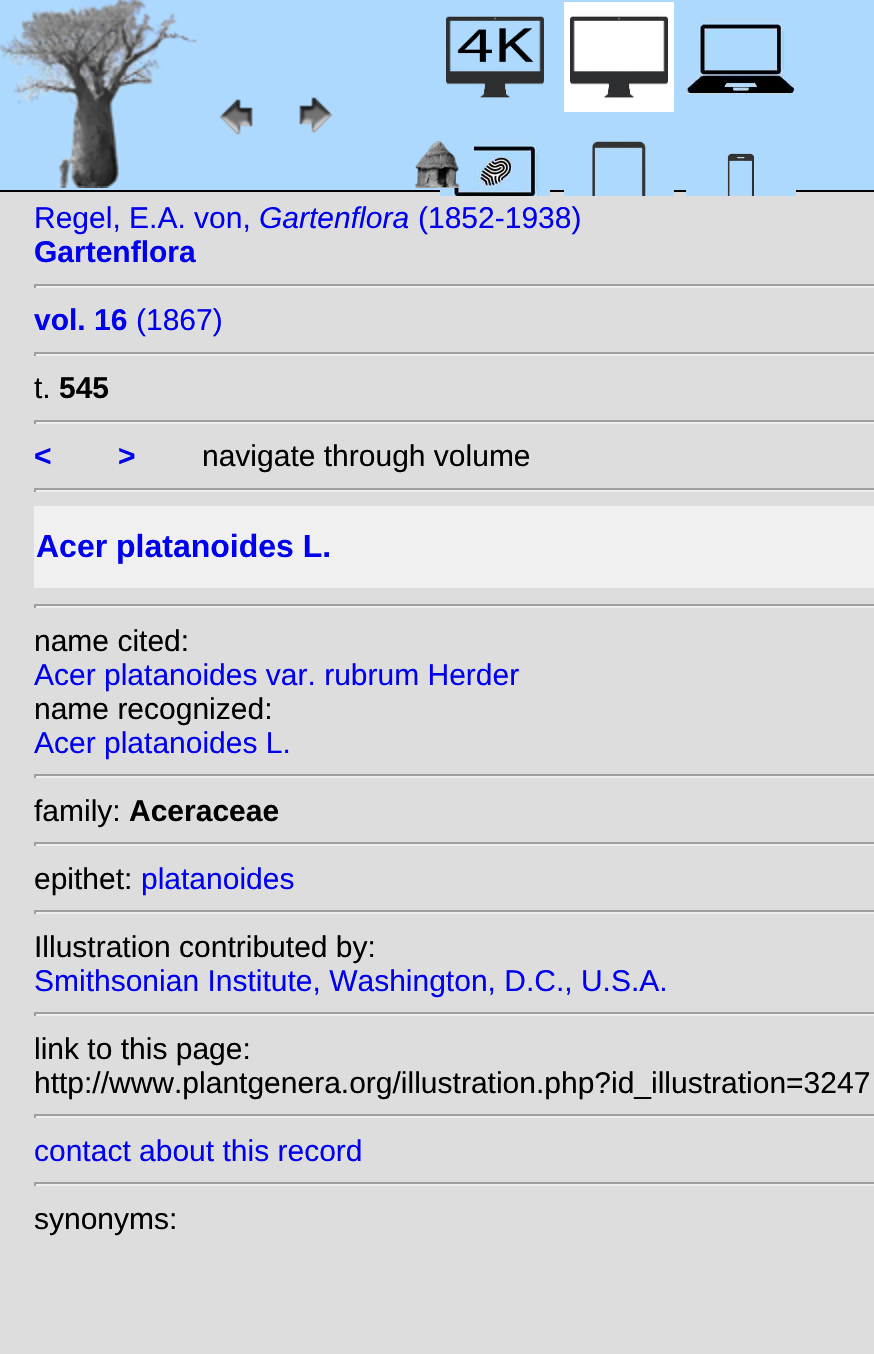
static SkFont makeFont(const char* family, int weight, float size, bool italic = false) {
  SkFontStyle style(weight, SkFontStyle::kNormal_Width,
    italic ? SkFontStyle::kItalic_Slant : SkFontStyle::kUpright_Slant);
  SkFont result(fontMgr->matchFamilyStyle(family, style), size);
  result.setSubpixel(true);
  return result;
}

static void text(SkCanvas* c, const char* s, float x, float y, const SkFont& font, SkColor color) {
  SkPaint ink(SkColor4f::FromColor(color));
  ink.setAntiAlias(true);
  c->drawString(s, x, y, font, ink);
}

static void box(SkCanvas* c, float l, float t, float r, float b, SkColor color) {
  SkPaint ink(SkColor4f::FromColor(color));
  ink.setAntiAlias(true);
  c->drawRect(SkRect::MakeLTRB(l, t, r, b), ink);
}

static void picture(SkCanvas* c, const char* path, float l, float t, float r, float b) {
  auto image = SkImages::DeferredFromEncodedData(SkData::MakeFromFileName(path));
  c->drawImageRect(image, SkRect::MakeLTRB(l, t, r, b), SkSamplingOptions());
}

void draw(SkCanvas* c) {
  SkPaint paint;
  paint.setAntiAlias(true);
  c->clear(0xffdddddd);
  box(c, 0, 0, 874, 190, 0xffadd9fe);
  box(c, 0, 190, 874, 192, 0xff000000);
  picture(c, "img_01.png", 0, 0, 200, 188);
  picture(c, "img_02.png", 219, 99, 253, 135);
  picture(c, "img_03.png", 299, 97, 333, 133);
  picture(c, "img_04.png", 445, 16, 545, 99);
  picture(c, "img_05.png", 564, 2, 674, 112);
  picture(c, "img_06.png", 686, 18, 796, 94);
  picture(c, "img_07.png", 440, 140, 550, 196);
  picture(c, "img_08.png", 564, 141, 674, 196);
  picture(c, "img_09.png", 686, 153, 796, 196);
  picture(c, "img_10.png", 414, 140, 474, 188);
  SkFont face1 = makeFont("Liberation Sans", 400, 30);
  text(c, "Regel, E.A. von,", 34, 228, face1, 0xff0000ee);
  SkFont face2 = makeFont("Liberation Sans", 400, 30, true);
  text(c, "Gartenflora", 259, 228, face2, 0xff0000ee);
  text(c, "(1852-1938)", 418, 228, face1, 0xff0000ee);
  SkFont face3 = makeFont("Liberation Sans", 700, 30);
  text(c, "Gartenflora", 34, 262, face3, 0xff0000ee);
  box(c, 34, 284, 874, 286, 0xff9f9f9f);
  box(c, 34, 286, 874, 288, 0xffeeeeee);
  box(c, 34, 284, 36, 288, 0xff9f9f9f);
  text(c, "vol. 16", 34, 330, face3, 0xff0000ee);
  text(c, "(1867)", 136, 330, face1, 0xff0000ee);
  box(c, 34, 352, 874, 354, 0xff9f9f9f);
  box(c, 34, 354, 874, 356, 0xffeeeeee);
  box(c, 34, 352, 36, 356, 0xff9f9f9f);
  text(c, "t.", 34, 398, face1, 0xff000000);
  text(c, "545", 59, 398, face3, 0xff000000);
  box(c, 34, 420, 874, 422, 0xff9f9f9f);
  box(c, 34, 422, 874, 424, 0xffeeeeee);
  box(c, 34, 420, 36, 424, 0xff9f9f9f);
  text(c, "<", 34, 466, face3, 0xff0000ee);
  text(c, ">", 118, 466, face3, 0xff0000ee);
  text(c, "navigate through volume", 202, 466, face1, 0xff000000);
  box(c, 34, 488, 874, 490, 0xff9f9f9f);
  box(c, 34, 490, 874, 492, 0xffeeeeee);
  box(c, 34, 488, 36, 492, 0xff9f9f9f);
  box(c, 34, 506, 874, 588, 0xfff0f0f0);
  SkFont face4 = makeFont("Liberation Sans", 700, 32);
  text(c, "Acer platanoides L.", 36, 557, face4, 0xff0000ee);
  box(c, 34, 604, 874, 606, 0xff9f9f9f);
  box(c, 34, 606, 874, 608, 0xffeeeeee);
  box(c, 34, 604, 36, 608, 0xff9f9f9f);
  text(c, "name cited:", 34, 651, face1, 0xff000000);
  text(c, "Acer platanoides var. rubrum Herder", 34, 685, face1, 0xff0000ee);
  text(c, "name recognized:", 34, 719, face1, 0xff000000);
  text(c, "Acer platanoides L.", 34, 753, face1, 0xff0000ee);
  box(c, 34, 774, 874, 776, 0xff9f9f9f);
  box(c, 34, 776, 874, 778, 0xffeeeeee);
  box(c, 34, 774, 36, 778, 0xff9f9f9f);
  text(c, "family:", 34, 821, face1, 0xff000000);
  text(c, "Aceraceae", 129, 821, face3, 0xff000000);
  box(c, 34, 842, 874, 844, 0xff9f9f9f);
  box(c, 34, 844, 874, 846, 0xffeeeeee);
  box(c, 34, 842, 36, 846, 0xff9f9f9f);
  text(c, "epithet:", 34, 889, face1, 0xff000000);
  text(c, "platanoides", 141, 889, face1, 0xff0000ee);
  box(c, 34, 910, 874, 912, 0xff9f9f9f);
  box(c, 34, 912, 874, 914, 0xffeeeeee);
  box(c, 34, 910, 36, 914, 0xff9f9f9f);
  text(c, "Illustration contributed by:", 34, 957, face1, 0xff000000);
  text(c, "Smithsonian Institute, Washington, D.C., U.S.A.", 34, 991, face1, 0xff0000ee);
  box(c, 34, 1012, 874, 1014, 0xff9f9f9f);
  box(c, 34, 1014, 874, 1016, 0xffeeeeee);
  box(c, 34, 1012, 36, 1016, 0xff9f9f9f);
  text(c, "link to this page:", 34, 1059, face1, 0xff000000);
  text(c, "http://www.plantgenera.org/illustration.php?id_illustration=3247", 34, 1093, face1, 0xff000000);
  box(c, 34, 1114, 874, 1116, 0xff9f9f9f);
  box(c, 34, 1116, 874, 1118, 0xffeeeeee);
  box(c, 34, 1114, 36, 1118, 0xff9f9f9f);
  text(c, "contact about this record", 34, 1161, face1, 0xff0000ee);
  box(c, 34, 1182, 874, 1184, 0xff9f9f9f);
  box(c, 34, 1184, 874, 1186, 0xffeeeeee);
  box(c, 34, 1182, 36, 1186, 0xff9f9f9f);
  text(c, "synonyms:", 34, 1229, face1, 0xff000000);
}
